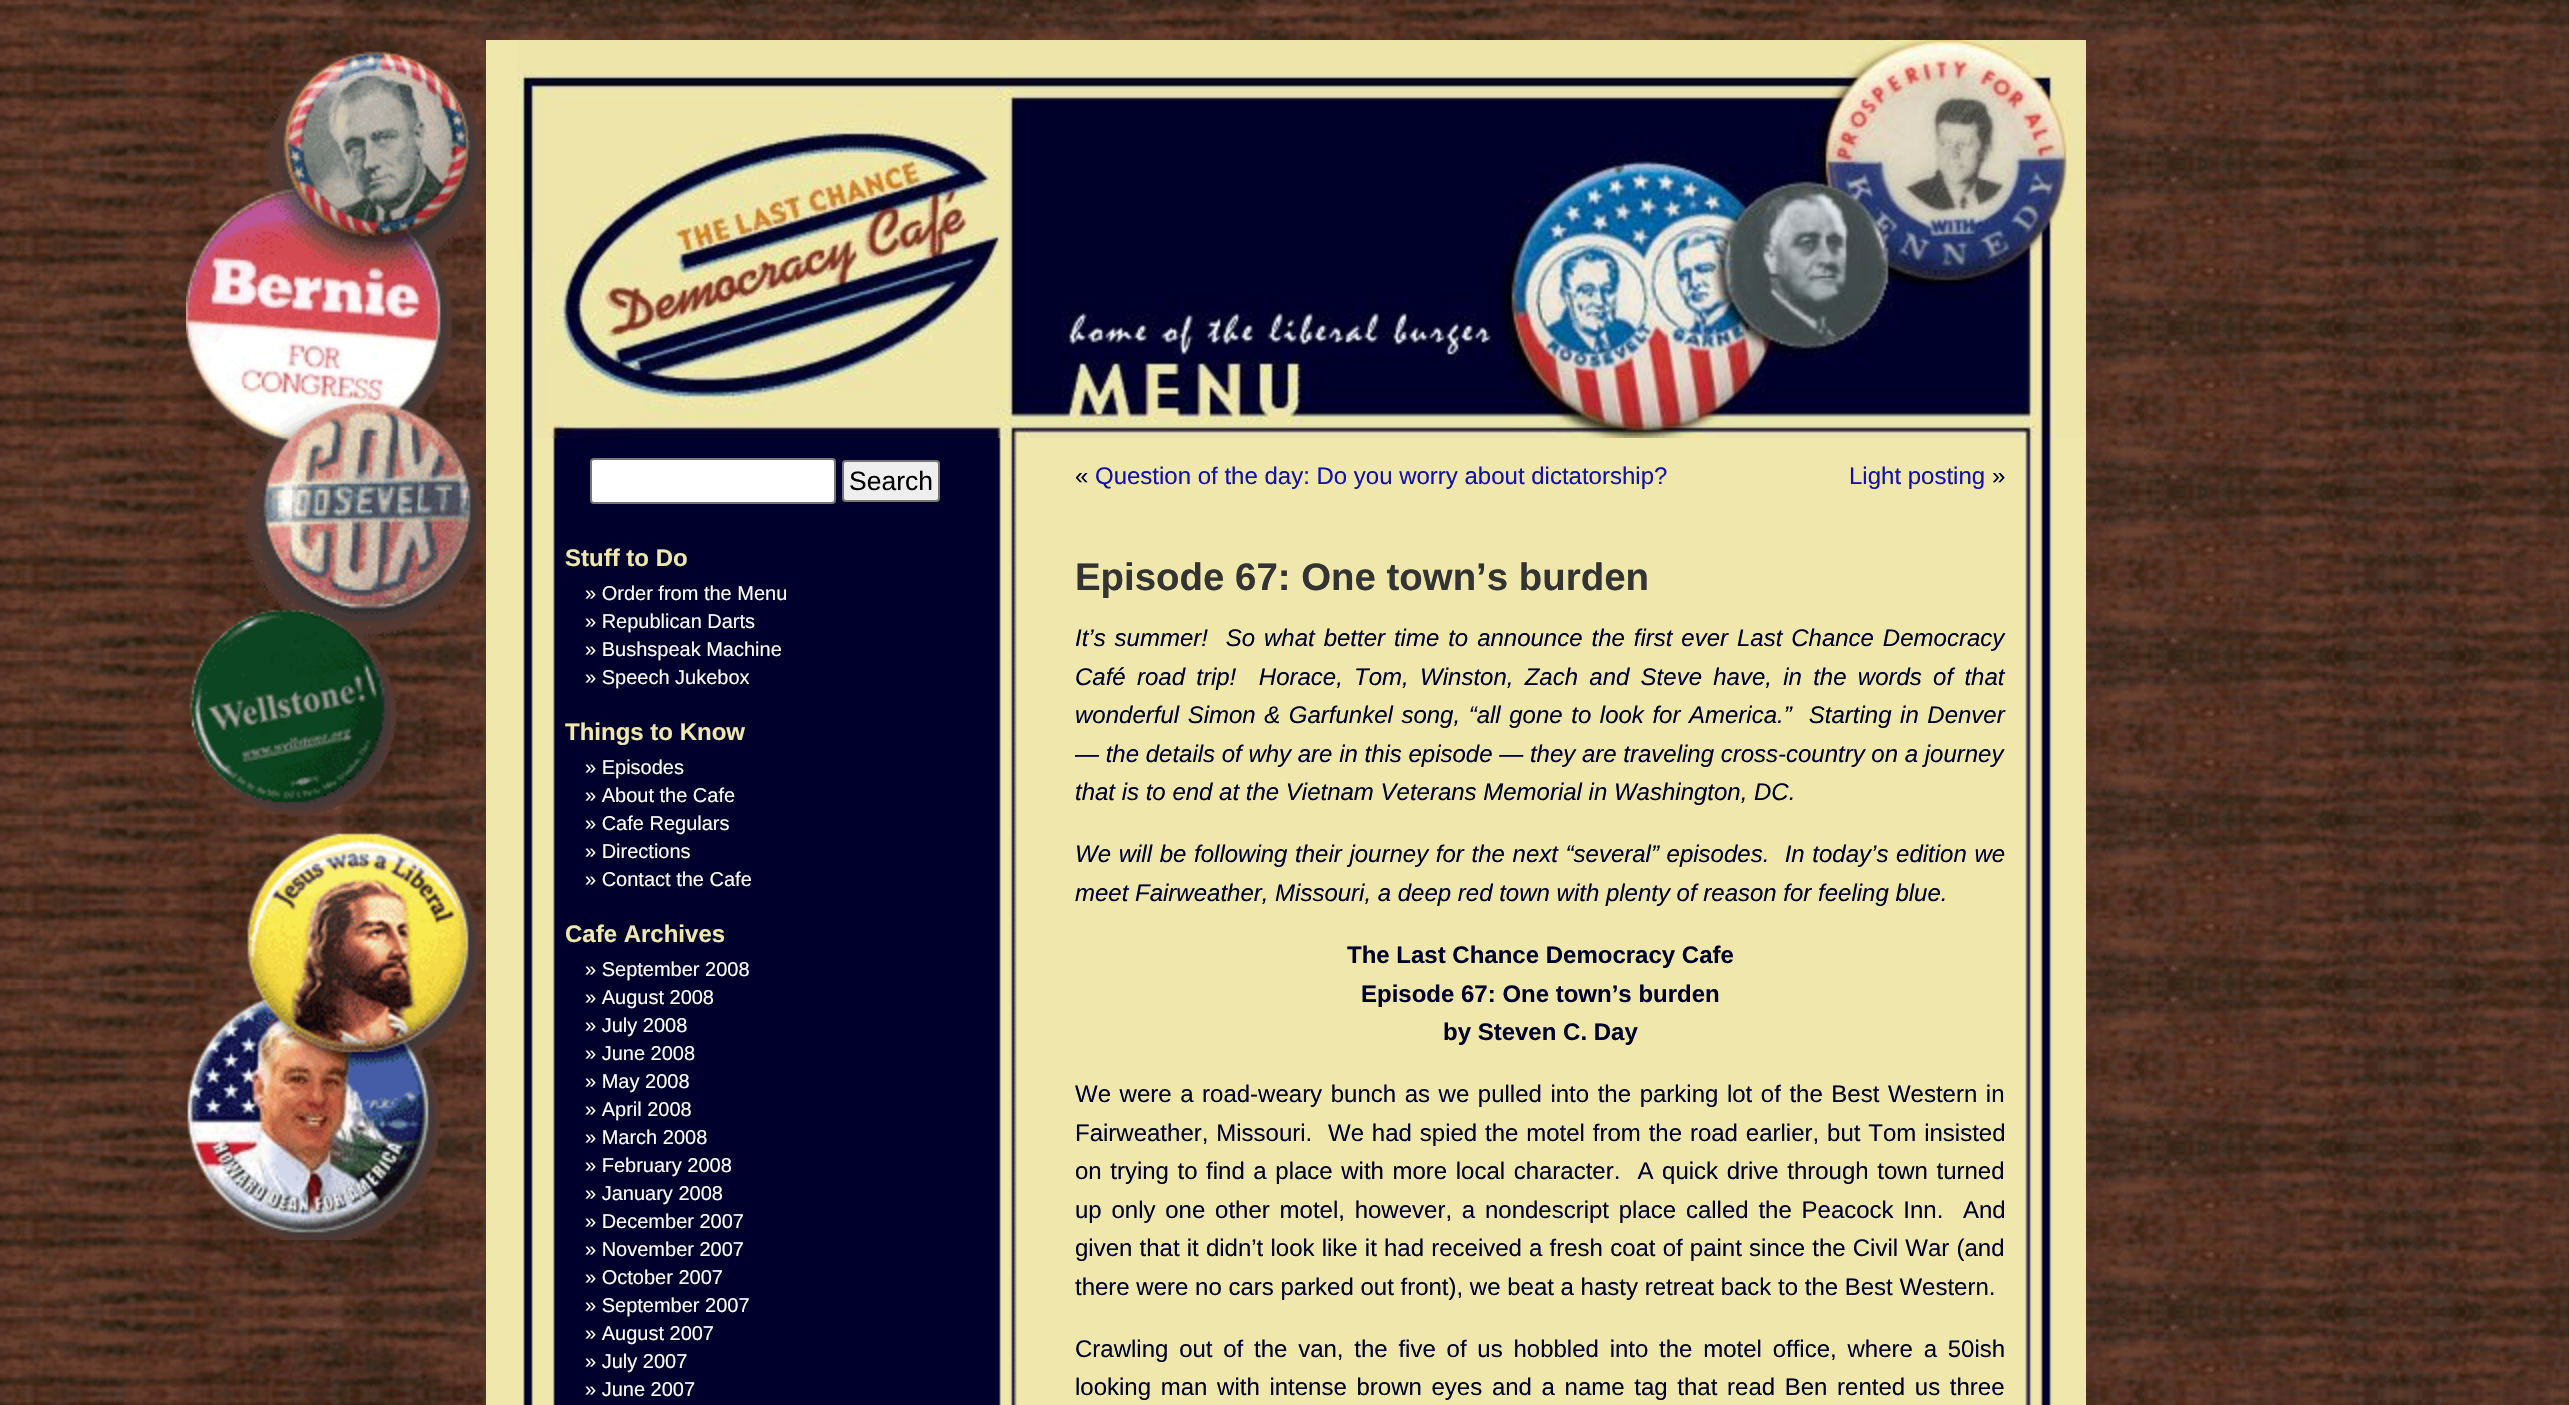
static SkFont makeFont(const char* family, int weight, float size, bool italic = false) {
  SkFontStyle style(weight, SkFontStyle::kNormal_Width,
    italic ? SkFontStyle::kItalic_Slant : SkFontStyle::kUpright_Slant);
  SkFont result(fontMgr->matchFamilyStyle(family, style), size);
  result.setSubpixel(true);
  return result;
}

static void text(SkCanvas* c, const char* s, float x, float y, const SkFont& font, SkColor color) {
  SkPaint ink(SkColor4f::FromColor(color));
  ink.setAntiAlias(true);
  c->drawString(s, x, y, font, ink);
}

static void spacedText(SkCanvas* c, const char* s, float x, float y, const SkFont& font, const SkPaint& ink, float letter, float word) {
  std::vector<SkGlyphID> glyphs(font.countText(s, strlen(s), SkTextEncoding::kUTF8));
  std::vector<float> xs(glyphs.size());
  font.textToGlyphs(s, strlen(s), SkTextEncoding::kUTF8, glyphs);
  font.getXPos(glyphs, xs, x);
  float extra = 0;
  for (size_t i = 0; i < glyphs.size(); i++) {
    xs[i] += extra;
    extra += letter + word * (glyphs[i] == font.unicharToGlyph(' '));
  }
  c->drawTextBlob(SkTextBlob::MakeFromPosHGlyphs(glyphs, xs, y, font), 0, 0, ink);
}

static void picture(SkCanvas* c, const char* path, float l, float t, float r, float b) {
  auto image = SkImages::DeferredFromEncodedData(SkData::MakeFromFileName(path));
  c->drawImageRect(image, SkRect::MakeLTRB(l, t, r, b), SkSamplingOptions());
}

void draw(SkCanvas* c) {
  SkPaint paint;
  paint.setAntiAlias(true);
  c->clear(0xffffffff);
  picture(c, "img_01.png", 0, 0, 2569, 1405);
  picture(c, "img_02.png", 486, 438, 2086, 1405);
  picture(c, "img_03.png", 186, 51, 484, 1240);
  picture(c, "img_04.png", 486, 40, 517, 438);
  picture(c, "img_05.png", 517, 40, 2086, 438);
  paint.setColor(0xffffffff);
  c->drawRoundRect(SkRect::MakeLTRB(591, 459, 835, 503), 3, 3, paint);
  paint.setStyle(SkPaint::kStroke_Style);
  paint.setStrokeWidth(2);
  paint.setColor(0xff767676);
  c->drawRoundRect(SkRect::MakeLTRB(591, 459, 835, 503), 3, 3, paint);
  paint.setStyle(SkPaint::kFill_Style);
  paint.setColor(0xffefefef);
  c->drawRoundRect(SkRect::MakeLTRB(843, 461, 939, 501), 3, 3, paint);
  paint.setStyle(SkPaint::kStroke_Style);
  paint.setColor(0xff767676);
  c->drawRoundRect(SkRect::MakeLTRB(843, 461, 939, 501), 3, 3, paint);
  SkFont face1 = makeFont("Liberation Sans", 400, 26.5f);
  text(c, "Search", 849, 490, face1, 0xff000000);
  SkFont face2 = makeFont("Liberation Sans", 700, 24);
  text(c, "Stuff to Do", 565, 566, face2, 0xffefe7ab);
  SkFont face3 = makeFont("Liberation Sans", 400, 20);
  text(c, "» Order from the Menu", 585, 600, face3, 0xffffffff);
  text(c, "» Republican Darts", 585, 628, face3, 0xffffffff);
  text(c, "» Bushspeak Machine", 585, 656, face3, 0xffffffff);
  text(c, "» Speech Jukebox", 585, 684, face3, 0xffffffff);
  text(c, "Things to Know", 565, 740, face2, 0xffefe7ab);
  text(c, "» Episodes", 585, 774, face3, 0xffffffff);
  text(c, "» About the Cafe", 585, 802, face3, 0xffffffff);
  text(c, "» Cafe Regulars", 585, 830, face3, 0xffffffff);
  text(c, "» Directions", 585, 858, face3, 0xffffffff);
  text(c, "» Contact the Cafe", 585, 886, face3, 0xffffffff);
  text(c, "Cafe Archives", 565, 942, face2, 0xffefe7ab);
  text(c, "» September 2008", 585, 976, face3, 0xffffffff);
  text(c, "» August 2008", 585, 1004, face3, 0xffffffff);
  text(c, "» July 2008", 585, 1032, face3, 0xffffffff);
  text(c, "» June 2008", 585, 1060, face3, 0xffffffff);
  text(c, "» May 2008", 585, 1088, face3, 0xffffffff);
  text(c, "» April 2008", 585, 1116, face3, 0xffffffff);
  text(c, "» March 2008", 585, 1144, face3, 0xffffffff);
  text(c, "» February 2008", 585, 1172, face3, 0xffffffff);
  text(c, "» January 2008", 585, 1200, face3, 0xffffffff);
  text(c, "» December 2007", 585, 1228, face3, 0xffffffff);
  text(c, "» November 2007", 585, 1256, face3, 0xffffffff);
  text(c, "» October 2007", 585, 1284, face3, 0xffffffff);
  text(c, "» September 2007", 585, 1312, face3, 0xffffffff);
  text(c, "» August 2007", 585, 1340, face3, 0xffffffff);
  text(c, "» July 2007", 585, 1368, face3, 0xffffffff);
  text(c, "» June 2007", 585, 1396, face3, 0xffffffff);
  SkFont face4 = makeFont("Liberation Sans", 400, 24);
  text(c, "«", 1075, 484, face4, 0xff00002c);
  text(c, "Question of the day: Do you worry about dictatorship?", 1095, 484, face4, 0xff1111ac);
  text(c, "Light posting", 1849, 484, face4, 0xff1111ac);
  text(c, "»", 1992, 484, face4, 0xff00002c);
  SkFont face5 = makeFont("Liberation Sans", 700, 38.4f);
  text(c, "Episode 67: One town’s burden", 1075, 590, face5, 0xff333333);
  SkFont face6 = makeFont("Liberation Sans", 400, 24, true);
  paint.setStyle(SkPaint::kFill_Style);
  paint.setColor(0xff00002c);
  spacedText(c, "It’s summer!  So what better time to announce the first ever Last Chance Democracy", 1075, 646, face6, paint, 0, 2.25f);
  spacedText(c, "Café road trip!  Horace, Tom, Winston, Zach and Steve have, in the words of that", 1075, 685, face6, paint, 0, 4.6f);
  spacedText(c, "wonderful Simon & Garfunkel song, “all gone to look for America.”  Starting in Denver", 1075, 723, face6, paint, 0, 1.9f);
  text(c, "— the details of why are in this episode — they are traveling cross-country on a journey", 1075, 762, face6, 0xff00002c);
  text(c, "that is to end at the Vietnam Veterans Memorial in Washington, DC.", 1075, 800, face6, 0xff00002c);
  spacedText(c, "We will be following their journey for the next “several” episodes.  In today’s edition we", 1075, 862, face6, paint, 0, 1);
  text(c, "meet Fairweather, Missouri, a deep red town with plenty of reason for feeling blue.", 1075, 901, face6, 0xff00002c);
  text(c, "The Last Chance Democracy Cafe", 1347, 963, face2, 0xff00002c);
  text(c, "Episode 67: One town’s burden", 1361, 1002, face2, 0xff00002c);
  text(c, "by Steven C. Day", 1443, 1040, face2, 0xff00002c);
  spacedText(c, "We were a road-weary bunch as we pulled into the parking lot of the Best Western in", 1075, 1102, face4, paint, 0, 1.9f);
  spacedText(c, "Fairweather, Missouri.  We had spied the motel from the road earlier, but Tom insisted", 1075, 1141, face4, paint, 0, 1.2f);
  spacedText(c, "on trying to find a place with more local character.  A quick drive through town turned", 1075, 1179, face4, paint, 0, 1.9f);
  spacedText(c, "up only one other motel, however, a nondescript place called the Peacock Inn.  And", 1075, 1218, face4, paint, 0, 3.1f);
  spacedText(c, "given that it didn’t look like it had received a fresh coat of paint since the Civil War (and", 1075, 1256, face4, paint, 0, 0.5f);
  text(c, "there were no cars parked out front), we beat a hasty retreat back to the Best Western.", 1075, 1295, face4, 0xff00002c);
  spacedText(c, "Crawling out of the van, the five of us hobbled into the motel office, where a 50ish", 1075, 1357, face4, paint, 0, 4.1f);
  spacedText(c, "looking man with intense brown eyes and a name tag that read Ben rented us three", 1075, 1395, face4, paint, 0, 3);
}
